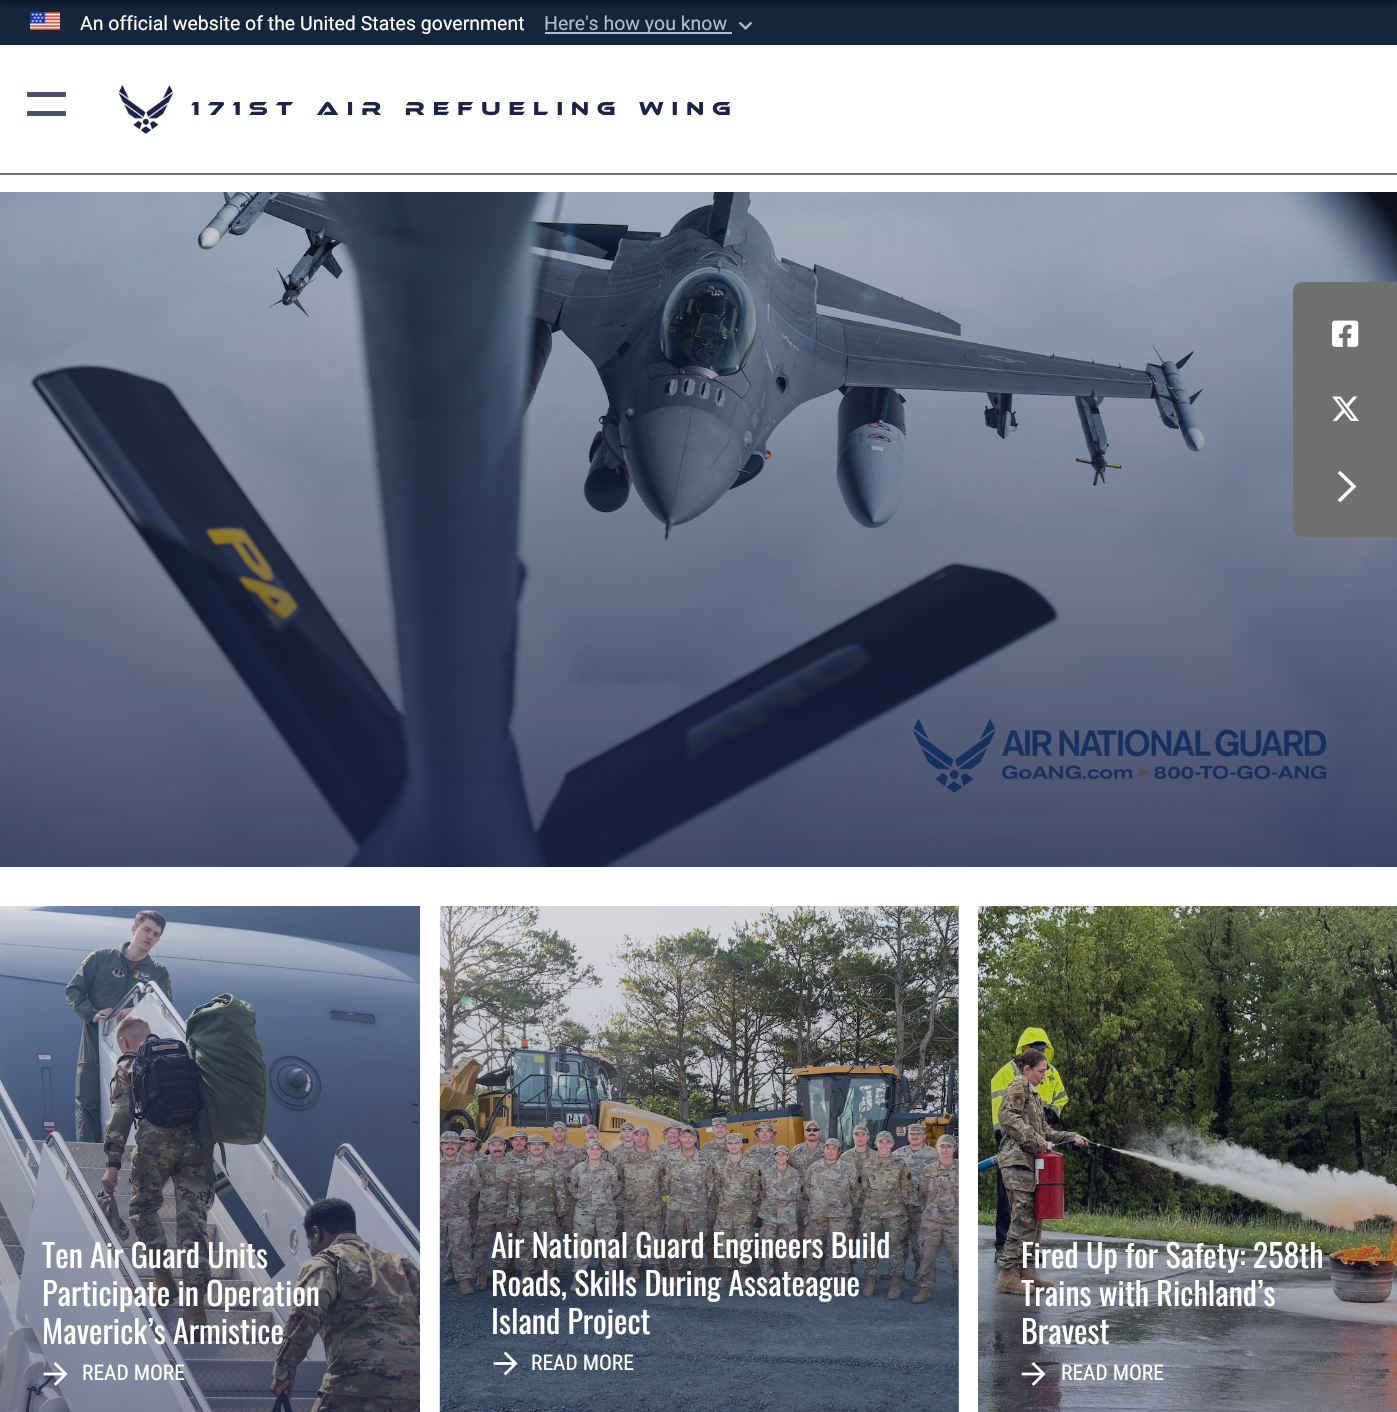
static SkFont makeFont(const char* family, int weight, float size, bool italic = false) {
  SkFontStyle style(weight, SkFontStyle::kNormal_Width,
    italic ? SkFontStyle::kItalic_Slant : SkFontStyle::kUpright_Slant);
  SkFont result(fontMgr->matchFamilyStyle(family, style), size);
  result.setSubpixel(true);
  return result;
}

static void text(SkCanvas* c, const char* s, float x, float y, const SkFont& font, SkColor color) {
  SkPaint ink(SkColor4f::FromColor(color));
  ink.setAntiAlias(true);
  c->drawString(s, x, y, font, ink);
}

static void spacedText(SkCanvas* c, const char* s, float x, float y, const SkFont& font, const SkPaint& ink, float letter, float word) {
  std::vector<SkGlyphID> glyphs(font.countText(s, strlen(s), SkTextEncoding::kUTF8));
  std::vector<float> xs(glyphs.size());
  font.textToGlyphs(s, strlen(s), SkTextEncoding::kUTF8, glyphs);
  font.getXPos(glyphs, xs, x);
  float extra = 0;
  for (size_t i = 0; i < glyphs.size(); i++) {
    xs[i] += extra;
    extra += letter + word * (glyphs[i] == font.unicharToGlyph(' '));
  }
  c->drawTextBlob(SkTextBlob::MakeFromPosHGlyphs(glyphs, xs, y, font), 0, 0, ink);
}

static void box(SkCanvas* c, float l, float t, float r, float b, SkColor color) {
  SkPaint ink(SkColor4f::FromColor(color));
  ink.setAntiAlias(true);
  c->drawRect(SkRect::MakeLTRB(l, t, r, b), ink);
}

static void roundBox(SkCanvas* c, float l, float t, float r, float b, float radius, SkColor color) {
  SkPaint ink(SkColor4f::FromColor(color));
  ink.setAntiAlias(true);
  c->drawRoundRect(SkRect::MakeLTRB(l, t, r, b), radius, radius, ink);
}

static void picture(SkCanvas* c, const char* path, float l, float t, float r, float b) {
  auto image = SkImages::DeferredFromEncodedData(SkData::MakeFromFileName(path));
  c->drawImageRect(image, SkRect::MakeLTRB(l, t, r, b), SkSamplingOptions());
}

void draw(SkCanvas* c) {
  SkPaint paint;
  paint.setAntiAlias(true);
  c->clear(0xffffffff);
  box(c, 0, 0, 1397, 45, 0xff15263b);
  picture(c, "img_01.png", 30, 12, 60, 30);
  SkFont face1 = makeFont("Roboto", 400, 19.5f);
  text(c, "An official website of the United States government", 80, 30, face1, 0xffffffff);
  box(c, 545, 32, 732, 34, 0xffaebfd4);
  text(c, "Here's how you know", 544, 30, face1, 0xffaebfd4);
  picture(c, "img_02.png", 738, 21, 753, 30);
  paint.setColor(0x80020406);
  paint.setMaskFilter(SkMaskFilter::MakeBlur(kNormal_SkBlurStyle, 4));
  c->drawRect(SkRect::MakeLTRB(0, -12, 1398, 3), paint);
  paint.setMaskFilter(nullptr);
  box(c, 0, 173, 1397, 175, 0xff707070);
  roundBox(c, 27, 92, 66, 97, 1, 0xff49506d);
  roundBox(c, 27, 111, 66, 116, 1, 0xff49506d);
  picture(c, "img_03.png", 118, 85, 174, 135);
  SkFont face2 = makeFont("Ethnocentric", 400, 19.5f);
  paint.setColor(0xff1c2449);
  spacedText(c, "171st Air Refueling Wing", 191, 115, face2, paint, 8, 0);
  picture(c, "img_04.png", 0, 192, 1397, 867);
  paint.setColor(0xff707070);
  c->drawPath(SkPathBuilder().moveTo(1302, 282).lineTo(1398, 282).lineTo(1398, 537).lineTo(1302, 537).cubicTo(1297, 537, 1293, 533, 1293, 528).lineTo(1293, 291).cubicTo(1293, 286, 1297, 282, 1302, 282).close().detach(), paint);
  picture(c, "img_05.png", 1332, 320, 1359, 347);
  picture(c, "img_06.png", 1332, 396, 1359, 421);
  paint.setColor(0xffffffff);
  c->drawPath(SkPathBuilder().moveTo(1356.5f, 486.5f).lineTo(1340.5f, 471).lineTo(1340, 471).lineTo(1338, 473).lineTo(1338, 473.5f).lineTo(1351.5f, 486.5f).lineTo(1338, 499.5f).lineTo(1338, 500.5f).lineTo(1340, 502).lineTo(1340.5f, 502).close().detach(), paint);
  picture(c, "img_07.png", 0, 906, 420, 1412);
  SkFont face3 = makeFont("Oswald", 400, 32);
  text(c, "Ten Air Guard Units", 42, 1268, face3, 0xffffffff);
  text(c, "Participate in Operation", 42, 1306, face3, 0xffffffff);
  text(c, "Maverick’s Armistice", 42, 1344, face3, 0xffffffff);
  picture(c, "img_08.png", 43, 1362, 68, 1386);
  SkFont face4 = makeFont("Roboto Condensed", 400, 21.5f);
  text(c, "READ MORE", 82, 1380, face4, 0xffffffff);
  box(c, 958, 906, 959, 1412, 0xffb5c7e3);
  picture(c, "img_09.png", 439, 906, 959, 1412);
  {
    const SkColor colors[] = {0x261c2347, 0x7a1c2347};
    const float stops[] = {0.05f, 1};
    const SkPoint ends[] = {{699, 906}, {699, 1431}};
    paint.setShader(SkGradientShader::MakeLinear(ends, colors, stops, 2, SkTileMode::kClamp));
    paint.setAlpha(255);
  }
  c->drawRect(SkRect::MakeLTRB(440, 906, 959, 1412), paint);
  text(c, "Air National Guard Engineers Build", 491, 1258, face3, 0xffffffff);
  text(c, "Roads, Skills During Assateague", 491, 1296, face3, 0xffffffff);
  text(c, "Island Project", 491, 1334, face3, 0xffffffff);
  picture(c, "img_10.png", 493, 1351, 518, 1376);
  text(c, "READ MORE", 531, 1370, face4, 0xffffffff);
  picture(c, "img_11.png", 978, 906, 1397, 1412);
  text(c, "Fired Up for Safety: 258th", 1021, 1268, face3, 0xffffffff);
  text(c, "Trains with Richland’s", 1021, 1306, face3, 0xffffffff);
  text(c, "Bravest", 1021, 1344, face3, 0xffffffff);
  picture(c, "img_12.png", 1021, 1362, 1046, 1386);
  text(c, "READ MORE", 1061, 1380, face4, 0xffffffff);
}
